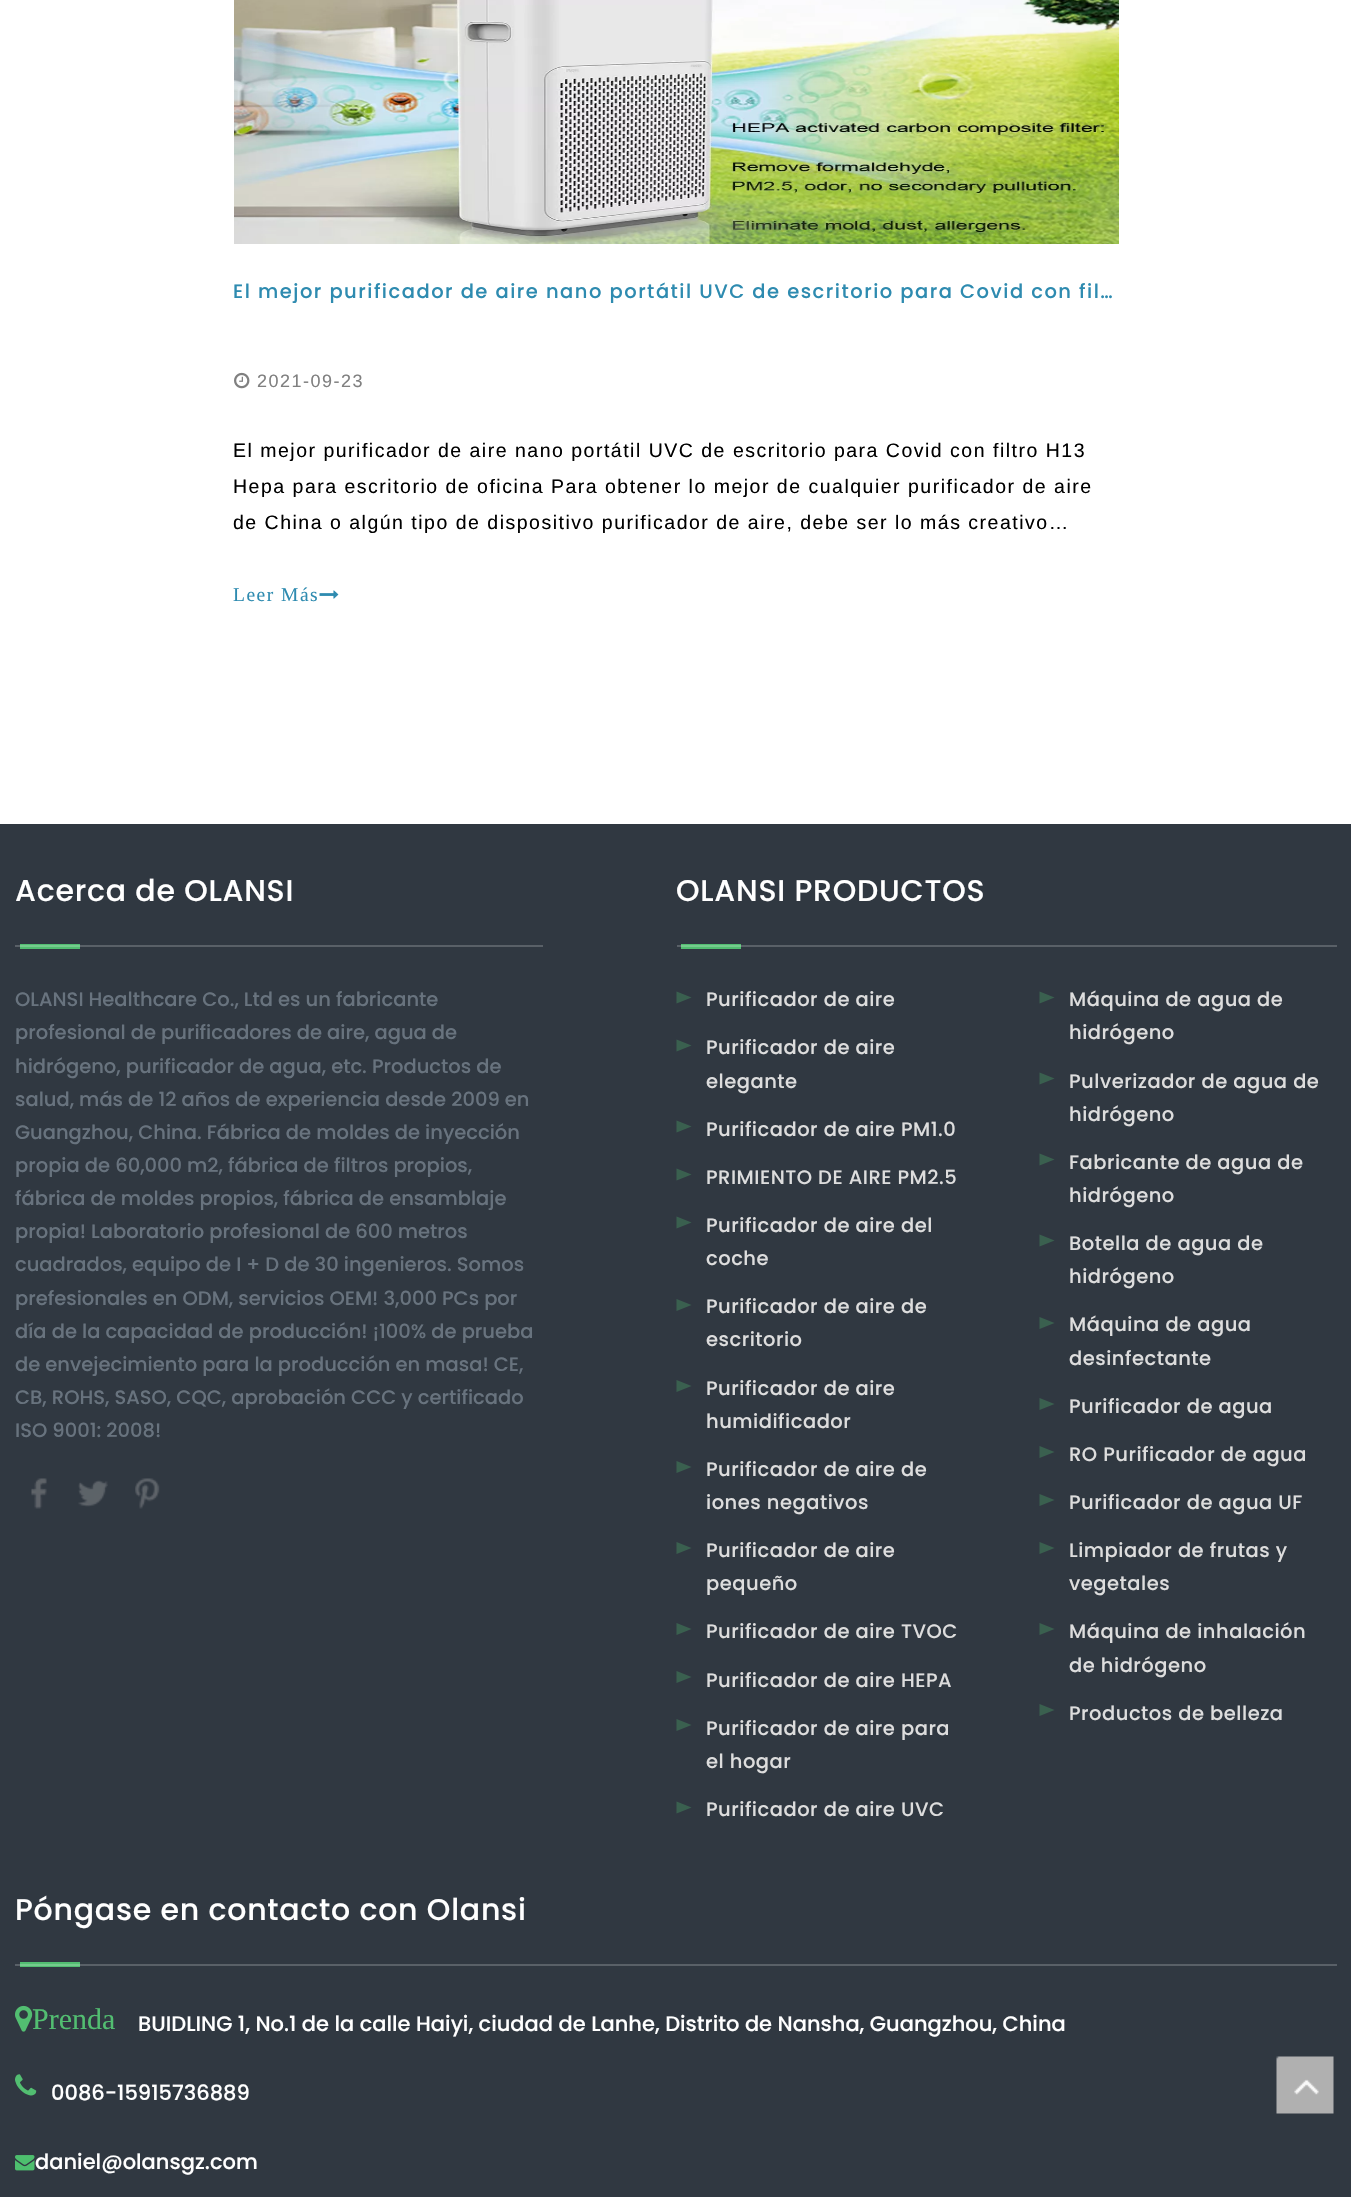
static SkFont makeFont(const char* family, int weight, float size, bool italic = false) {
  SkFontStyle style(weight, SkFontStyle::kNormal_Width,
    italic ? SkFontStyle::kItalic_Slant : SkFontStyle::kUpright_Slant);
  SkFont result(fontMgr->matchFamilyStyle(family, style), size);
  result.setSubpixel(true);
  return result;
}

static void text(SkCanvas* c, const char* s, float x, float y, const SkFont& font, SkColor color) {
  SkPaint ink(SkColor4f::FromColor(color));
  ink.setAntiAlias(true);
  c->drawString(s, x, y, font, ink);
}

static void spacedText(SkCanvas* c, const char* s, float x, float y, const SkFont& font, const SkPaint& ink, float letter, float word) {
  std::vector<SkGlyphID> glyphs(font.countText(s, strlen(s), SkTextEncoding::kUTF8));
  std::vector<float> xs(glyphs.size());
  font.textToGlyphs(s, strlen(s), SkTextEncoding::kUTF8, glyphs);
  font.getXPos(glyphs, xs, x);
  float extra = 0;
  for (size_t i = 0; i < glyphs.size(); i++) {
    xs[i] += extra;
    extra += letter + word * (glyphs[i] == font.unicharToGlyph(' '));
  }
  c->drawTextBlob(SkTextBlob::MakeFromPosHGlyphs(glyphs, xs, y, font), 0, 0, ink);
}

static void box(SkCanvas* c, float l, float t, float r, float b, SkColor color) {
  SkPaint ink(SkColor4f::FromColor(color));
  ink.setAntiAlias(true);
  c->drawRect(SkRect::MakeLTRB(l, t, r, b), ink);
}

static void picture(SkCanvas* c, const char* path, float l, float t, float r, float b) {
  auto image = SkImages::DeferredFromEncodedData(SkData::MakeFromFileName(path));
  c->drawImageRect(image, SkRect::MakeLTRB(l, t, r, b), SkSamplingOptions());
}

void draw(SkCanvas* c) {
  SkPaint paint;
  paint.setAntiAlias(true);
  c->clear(0xffffffff);
  picture(c, "img_01.png", 234, 0, 1119, 244);
  SkFont face1 = makeFont("Poppins", 500, 19.5f);
  paint.setColor(0xff2e8bb0);
  spacedText(c, "El mejor purificador de aire nano portátil UVC de escritorio para Covid con fil…", 233, 298, face1, paint, 1.5f, 0);
  picture(c, "img_02.png", 234, 372, 250, 389);
  SkFont face2 = makeFont("Liberation Sans", 400, 18);
  paint.setColor(0xff808080);
  spacedText(c, "2021-09-23", 257, 387, face2, paint, 1.5f, 0);
  SkFont face3 = makeFont("Liberation Sans", 400, 19.5f);
  paint.setColor(0xff000000);
  spacedText(c, "El mejor purificador de aire nano portátil UVC de escritorio para Covid con filtro H13", 233, 457, face3, paint, 1.5f, 0);
  spacedText(c, "Hepa para escritorio de oficina Para obtener lo mejor de cualquier purificador de aire", 233, 493, face3, paint, 1.5f, 0);
  spacedText(c, "de China o algún tipo de dispositivo purificador de aire, debe ser lo más creativo…", 233, 529, face3, paint, 1.5f, 0);
  SkFont face4 = makeFont("Liberation Serif", 400, 19.5f);
  paint.setColor(0xff2e8bb0);
  spacedText(c, "Leer Más", 233, 601, face4, paint, 1.5f, 0);
  picture(c, "img_03.png", 319, 590, 339, 599);
  box(c, 0, 824, 1351, 2197, 0xff303841);
  box(c, 15, 1964, 1337, 1966, 0xff596067);
  box(c, 677, 945, 1337, 947, 0xff596067);
  box(c, 15, 945, 543, 947, 0xff596067);
  SkFont face5 = makeFont("Poppins", 500, 30);
  paint.setColor(0xffffffff);
  spacedText(c, "Acerca de OLANSI", 15, 901, face5, paint, 0.75f, 0);
  box(c, 20, 944, 80, 949, 0xff52be71);
  box(c, 20, 945, 80, 947, 0xff75cb8d);
  text(c, "OLANSI Healthcare Co., Ltd es un fabricante", 15, 1006, face1, 0xff68737e);
  text(c, "profesional de purificadores de aire, agua de", 15, 1039, face1, 0xff68737e);
  text(c, "hidrógeno, purificador de agua, etc. Productos de", 15, 1073, face1, 0xff68737e);
  text(c, "salud, más de 12 años de experiencia desde 2009 en", 15, 1106, face1, 0xff68737e);
  text(c, "Guangzhou, China. Fábrica de moldes de inyección", 15, 1139, face1, 0xff68737e);
  text(c, "propia de 60,000 m2, fábrica de filtros propios,", 15, 1172, face1, 0xff68737e);
  text(c, "fábrica de moldes propios, fábrica de ensamblaje", 15, 1205, face1, 0xff68737e);
  text(c, "propia! Laboratorio profesional de 600 metros", 15, 1238, face1, 0xff68737e);
  text(c, "cuadrados, equipo de I + D de 30 ingenieros. Somos", 15, 1271, face1, 0xff68737e);
  text(c, "prefesionales en ODM, servicios OEM! 3,000 PCs por", 15, 1305, face1, 0xff68737e);
  text(c, "día de la capacidad de producción! ¡100% de prueba", 15, 1338, face1, 0xff68737e);
  text(c, "de envejecimiento para la producción en masa! CE,", 15, 1371, face1, 0xff68737e);
  text(c, "CB, ROHS, SASO, CQC, aprobación CCC y certificado", 15, 1404, face1, 0xff68737e);
  text(c, "ISO 9001: 2008!", 15, 1437, face1, 0xff68737e);
  picture(c, "img_04.png", 31, 1478, 47, 1509);
  picture(c, "img_05.png", 78, 1480, 108, 1507);
  picture(c, "img_06.png", 135, 1478, 160, 1509);
  spacedText(c, "OLANSI PRODUCTOS", 676, 901, face5, paint, 0.75f, 0);
  box(c, 681, 944, 741, 949, 0xff52be71);
  box(c, 681, 945, 741, 947, 0xff75cb8d);
  paint.setColor(0xff3a604f);
  c->drawPath(SkPathBuilder().moveTo(676.5f, 1003.5f).lineTo(676.5f, 991.5f).lineTo(691.5f, 997.5f).close().detach(), paint);
  paint.setColor(0xffdddddd);
  spacedText(c, "Purificador de aire", 706, 1006, face1, paint, 0.5f, 0);
  paint.setColor(0xff3a604f);
  c->drawPath(SkPathBuilder().moveTo(676.5f, 1051.5f).lineTo(676.5f, 1039.5f).lineTo(691.5f, 1045.5f).close().detach(), paint);
  paint.setColor(0xffdddddd);
  spacedText(c, "Purificador de aire", 706, 1054, face1, paint, 0.5f, 0);
  spacedText(c, "elegante", 706, 1088, face1, paint, 0.5f, 0);
  paint.setColor(0xff3a604f);
  c->drawPath(SkPathBuilder().moveTo(676.5f, 1132.5f).lineTo(676.5f, 1120.5f).lineTo(691.5f, 1126.5f).close().detach(), paint);
  paint.setColor(0xffdddddd);
  spacedText(c, "Purificador de aire PM1.0", 706, 1136, face1, paint, 0.5f, 0);
  paint.setColor(0xff3a604f);
  c->drawPath(SkPathBuilder().moveTo(676.5f, 1180.5f).lineTo(676.5f, 1168.5f).lineTo(691.5f, 1174.5f).close().detach(), paint);
  paint.setColor(0xffdddddd);
  spacedText(c, "PRIMIENTO DE AIRE PM2.5", 706, 1184, face1, paint, 0.5f, 0);
  paint.setColor(0xff3a604f);
  c->drawPath(SkPathBuilder().moveTo(676.5f, 1228.5f).lineTo(676.5f, 1216.5f).lineTo(691.5f, 1222.5f).close().detach(), paint);
  paint.setColor(0xffdddddd);
  spacedText(c, "Purificador de aire del", 706, 1232, face1, paint, 0.5f, 0);
  spacedText(c, "coche", 706, 1265, face1, paint, 0.5f, 0);
  paint.setColor(0xff3a604f);
  c->drawPath(SkPathBuilder().moveTo(676.5f, 1311).lineTo(676.5f, 1299).lineTo(691.5f, 1305).close().detach(), paint);
  paint.setColor(0xffdddddd);
  spacedText(c, "Purificador de aire de", 706, 1313, face1, paint, 0.5f, 0);
  spacedText(c, "escritorio", 706, 1346, face1, paint, 0.5f, 0);
  paint.setColor(0xff3a604f);
  c->drawPath(SkPathBuilder().moveTo(676.5f, 1392).lineTo(676.5f, 1380).lineTo(691.5f, 1386).close().detach(), paint);
  paint.setColor(0xffdddddd);
  spacedText(c, "Purificador de aire", 706, 1395, face1, paint, 0.5f, 0);
  spacedText(c, "humidificador", 706, 1428, face1, paint, 0.5f, 0);
  paint.setColor(0xff3a604f);
  c->drawPath(SkPathBuilder().moveTo(676.5f, 1473).lineTo(676.5f, 1461).lineTo(691.5f, 1467).close().detach(), paint);
  paint.setColor(0xffdddddd);
  spacedText(c, "Purificador de aire de", 706, 1476, face1, paint, 0.5f, 0);
  spacedText(c, "iones negativos", 706, 1509, face1, paint, 0.5f, 0);
  paint.setColor(0xff3a604f);
  c->drawPath(SkPathBuilder().moveTo(676.5f, 1554).lineTo(676.5f, 1542).lineTo(691.5f, 1548).close().detach(), paint);
  paint.setColor(0xffdddddd);
  spacedText(c, "Purificador de aire", 706, 1557, face1, paint, 0.5f, 0);
  spacedText(c, "pequeño", 706, 1590, face1, paint, 0.5f, 0);
  paint.setColor(0xff3a604f);
  c->drawPath(SkPathBuilder().moveTo(676.5f, 1635).lineTo(676.5f, 1623).lineTo(691.5f, 1629).close().detach(), paint);
  paint.setColor(0xffdddddd);
  spacedText(c, "Purificador de aire TVOC", 706, 1638, face1, paint, 0.5f, 0);
  paint.setColor(0xff3a604f);
  c->drawPath(SkPathBuilder().moveTo(676.5f, 1683).lineTo(676.5f, 1671).lineTo(691.5f, 1677).close().detach(), paint);
  paint.setColor(0xffdddddd);
  spacedText(c, "Purificador de aire HEPA", 706, 1687, face1, paint, 0.5f, 0);
  paint.setColor(0xff3a604f);
  c->drawPath(SkPathBuilder().moveTo(676.5f, 1731).lineTo(676.5f, 1719).lineTo(691.5f, 1725).close().detach(), paint);
  paint.setColor(0xffdddddd);
  spacedText(c, "Purificador de aire para", 706, 1735, face1, paint, 0.5f, 0);
  spacedText(c, "el hogar", 706, 1768, face1, paint, 0.5f, 0);
  paint.setColor(0xff3a604f);
  c->drawPath(SkPathBuilder().moveTo(676.5f, 1813.5f).lineTo(676.5f, 1801.5f).lineTo(691.5f, 1807.5f).close().detach(), paint);
  paint.setColor(0xffdddddd);
  spacedText(c, "Purificador de aire UVC", 706, 1816, face1, paint, 0.5f, 0);
  paint.setColor(0xff3a604f);
  c->drawPath(SkPathBuilder().moveTo(1039.5f, 1003.5f).lineTo(1039.5f, 991.5f).lineTo(1054.5f, 997.5f).close().detach(), paint);
  paint.setColor(0xffdddddd);
  spacedText(c, "Máquina de agua de", 1069, 1006, face1, paint, 0.5f, 0);
  spacedText(c, "hidrógeno", 1069, 1039, face1, paint, 0.5f, 0);
  paint.setColor(0xff3a604f);
  c->drawPath(SkPathBuilder().moveTo(1039.5f, 1084.5f).lineTo(1039.5f, 1072.5f).lineTo(1054.5f, 1078.5f).close().detach(), paint);
  paint.setColor(0xffdddddd);
  spacedText(c, "Pulverizador de agua de", 1069, 1088, face1, paint, 0.5f, 0);
  spacedText(c, "hidrógeno", 1069, 1121, face1, paint, 0.5f, 0);
  paint.setColor(0xff3a604f);
  c->drawPath(SkPathBuilder().moveTo(1039.5f, 1165.5f).lineTo(1039.5f, 1153.5f).lineTo(1054.5f, 1159.5f).close().detach(), paint);
  paint.setColor(0xffdddddd);
  spacedText(c, "Fabricante de agua de", 1069, 1169, face1, paint, 0.5f, 0);
  spacedText(c, "hidrógeno", 1069, 1202, face1, paint, 0.5f, 0);
  paint.setColor(0xff3a604f);
  c->drawPath(SkPathBuilder().moveTo(1039.5f, 1246.5f).lineTo(1039.5f, 1234.5f).lineTo(1054.5f, 1240.5f).close().detach(), paint);
  paint.setColor(0xffdddddd);
  spacedText(c, "Botella de agua de", 1069, 1250, face1, paint, 0.5f, 0);
  spacedText(c, "hidrógeno", 1069, 1283, face1, paint, 0.5f, 0);
  paint.setColor(0xff3a604f);
  c->drawPath(SkPathBuilder().moveTo(1039.5f, 1329).lineTo(1039.5f, 1317).lineTo(1054.5f, 1323).close().detach(), paint);
  paint.setColor(0xffdddddd);
  spacedText(c, "Máquina de agua", 1069, 1331, face1, paint, 0.5f, 0);
  spacedText(c, "desinfectante", 1069, 1365, face1, paint, 0.5f, 0);
  paint.setColor(0xff3a604f);
  c->drawPath(SkPathBuilder().moveTo(1039.5f, 1410).lineTo(1039.5f, 1398).lineTo(1054.5f, 1404).close().detach(), paint);
  paint.setColor(0xffdddddd);
  spacedText(c, "Purificador de agua", 1069, 1413, face1, paint, 0.5f, 0);
  paint.setColor(0xff3a604f);
  c->drawPath(SkPathBuilder().moveTo(1039.5f, 1458).lineTo(1039.5f, 1446).lineTo(1054.5f, 1452).close().detach(), paint);
  paint.setColor(0xffdddddd);
  spacedText(c, "RO Purificador de agua", 1069, 1461, face1, paint, 0.5f, 0);
  paint.setColor(0xff3a604f);
  c->drawPath(SkPathBuilder().moveTo(1039.5f, 1506).lineTo(1039.5f, 1494).lineTo(1054.5f, 1500).close().detach(), paint);
  paint.setColor(0xffdddddd);
  spacedText(c, "Purificador de agua UF", 1069, 1509, face1, paint, 0.5f, 0);
  paint.setColor(0xff3a604f);
  c->drawPath(SkPathBuilder().moveTo(1039.5f, 1554).lineTo(1039.5f, 1542).lineTo(1054.5f, 1548).close().detach(), paint);
  paint.setColor(0xffdddddd);
  spacedText(c, "Limpiador de frutas y", 1069, 1557, face1, paint, 0.5f, 0);
  spacedText(c, "vegetales", 1069, 1590, face1, paint, 0.5f, 0);
  paint.setColor(0xff3a604f);
  c->drawPath(SkPathBuilder().moveTo(1039.5f, 1635).lineTo(1039.5f, 1623).lineTo(1054.5f, 1629).close().detach(), paint);
  paint.setColor(0xffdddddd);
  spacedText(c, "Máquina de inhalación", 1069, 1638, face1, paint, 0.5f, 0);
  spacedText(c, "de hidrógeno", 1069, 1672, face1, paint, 0.5f, 0);
  paint.setColor(0xff3a604f);
  c->drawPath(SkPathBuilder().moveTo(1039.5f, 1716).lineTo(1039.5f, 1704).lineTo(1054.5f, 1710).close().detach(), paint);
  paint.setColor(0xffdddddd);
  spacedText(c, "Productos de belleza", 1069, 1720, face1, paint, 0.5f, 0);
  paint.setColor(0xffffffff);
  spacedText(c, "Póngase en contacto con Olansi", 15, 1920, face5, paint, 0.75f, 0);
  box(c, 20, 1962, 80, 1967, 0xff52be71);
  box(c, 20, 1964, 80, 1966, 0xff75cb8d);
  picture(c, "img_07.png", 15, 2005, 33, 2032);
  SkFont face6 = makeFont("Liberation Serif", 400, 30);
  text(c, "Prenda", 32, 2029, face6, 0xff52be71);
  SkFont face7 = makeFont("Poppins", 500, 21);
  text(c, "BUIDLING 1, No.1 de la calle Haiyi, ciudad de Lanhe, Distrito de Nansha, Guangzhou, China", 138, 2031, face7, 0xffffffff);
  picture(c, "img_08.png", 15, 2074, 37, 2096);
  text(c, "0086-15915736889", 51, 2100, face7, 0xffffffff);
  picture(c, "img_09.png", 15, 2155, 35, 2171);
  text(c, "daniel@olansgz.com", 35, 2169, face7, 0xffffffff);
  picture(c, "img_10.png", 1276, 2056, 1334, 2114);
}
